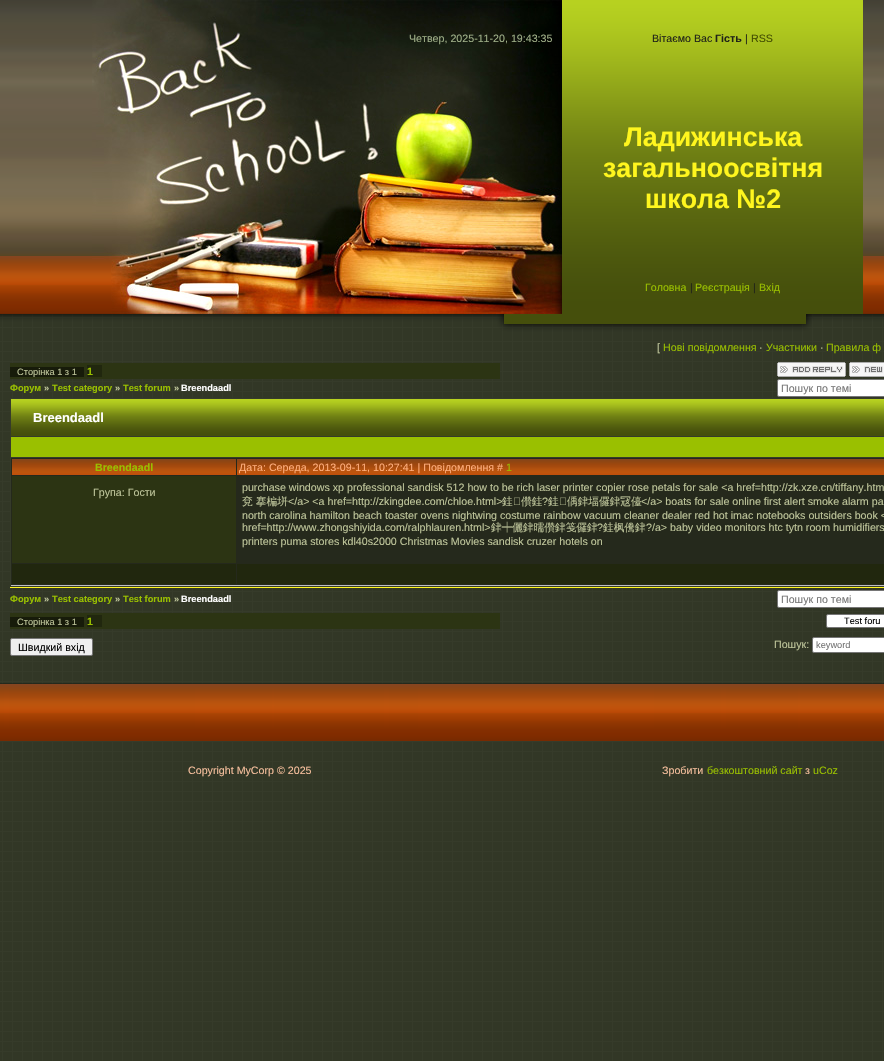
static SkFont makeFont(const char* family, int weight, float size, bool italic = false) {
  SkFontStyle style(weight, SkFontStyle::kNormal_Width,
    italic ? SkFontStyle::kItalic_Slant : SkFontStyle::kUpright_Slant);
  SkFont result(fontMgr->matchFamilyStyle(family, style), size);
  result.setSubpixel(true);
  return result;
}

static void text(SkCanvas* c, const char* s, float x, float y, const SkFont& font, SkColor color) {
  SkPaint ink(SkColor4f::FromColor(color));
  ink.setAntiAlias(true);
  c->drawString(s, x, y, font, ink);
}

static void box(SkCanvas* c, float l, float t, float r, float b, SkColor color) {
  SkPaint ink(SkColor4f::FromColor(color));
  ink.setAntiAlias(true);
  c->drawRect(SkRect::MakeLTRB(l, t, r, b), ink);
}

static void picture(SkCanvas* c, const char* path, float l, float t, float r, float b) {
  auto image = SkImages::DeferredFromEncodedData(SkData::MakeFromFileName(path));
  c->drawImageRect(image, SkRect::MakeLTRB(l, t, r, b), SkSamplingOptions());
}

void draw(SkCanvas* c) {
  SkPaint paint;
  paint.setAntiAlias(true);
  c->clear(0xffffffff);
  picture(c, "img_01.png", 0, 332, 884, 1061);
  picture(c, "img_02.png", 0, 0, 884, 314);
  picture(c, "img_03.png", 92, 0, 562, 76);
  SkFont face1 = makeFont("Liberation Sans", 400, 10.67f);
  text(c, "Четвер, 2025-11-20, 19:43:35", 409, 42, face1, 0xff9faf88);
  picture(c, "img_04.png", 562, 0, 863, 76);
  text(c, "Вітаємо Вас", 652, 42, face1, 0xff202318);
  SkFont face2 = makeFont("Liberation Sans", 700, 10.67f);
  text(c, "Гість", 715, 42, face2, 0xff202318);
  text(c, "|", 745, 42, face1, 0xff202318);
  text(c, "RSS", 751, 42, face1, 0xff414c00);
  picture(c, "img_05.png", 92, 76, 562, 260);
  picture(c, "img_06.png", 562, 76, 863, 260);
  SkFont face3 = makeFont("Liberation Sans", 700, 26.75f);
  text(c, "Ладижинська", 624, 146, face3, 0xfffff61e);
  text(c, "загальноосвітня", 603, 177, face3, 0xfffff61e);
  text(c, "школа №2", 645, 208, face3, 0xfffff61e);
  picture(c, "img_07.png", 111, 260, 562, 314);
  picture(c, "img_08.png", 562, 260, 863, 314);
  text(c, "Головна", 645, 291, face1, 0xff9ac000);
  text(c, "|", 690, 291, face1, 0xff202318);
  text(c, "Реєстрація", 695, 291, face1, 0xff9ac000);
  text(c, "|", 753, 291, face1, 0xff202318);
  text(c, "Вхід", 759, 291, face1, 0xff9ac000);
  picture(c, "img_09.png", 0, 314, 884, 332);
  text(c, "[", 657, 351, face1, 0xffbec59a);
  text(c, "Нові повідомлення", 663, 351, face1, 0xff9ac000);
  text(c, "·", 759, 351, face1, 0xffbec59a);
  text(c, "Участники", 766, 351, face1, 0xff9ac000);
  text(c, "·", 820, 351, face1, 0xffbec59a);
  text(c, "Правила ф", 826, 351, face1, 0xff9ac000);
  box(c, 10, 363, 500, 379, 0xff2c3413);
  box(c, 10, 367, 84, 377, 0xff171b0a);
  SkFont face4 = makeFont("Liberation Sans", 400, 9.25f);
  text(c, "Сторінка 1 з 1", 17, 375, face4, 0xffbec59a);
  box(c, 87, 365, 102, 377, 0xff21270e);
  text(c, "1", 87, 375, face2, 0xff9ac000);
  picture(c, "img_10.png", 777, 362, 846, 377);
  picture(c, "img_11.png", 849, 362, 884, 377);
  SkFont face5 = makeFont("Liberation Sans", 700, 9.25f);
  text(c, "Форум", 10, 391, face5, 0xff9ac000);
  text(c, "»", 44, 391, face5, 0xffbec59a);
  text(c, "Test category", 52, 391, face5, 0xff9ac000);
  text(c, "»", 115, 391, face5, 0xffbec59a);
  text(c, "Test forum", 123, 391, face5, 0xff9ac000);
  text(c, "»", 174, 391, face5, 0xffbec59a);
  text(c, "Breendaadl", 181, 391, face5, 0xffffffff);
  paint.setColor(0xffffffff);
  c->drawRoundRect(SkRect::MakeLTRB(777.5f, 379.5f, 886.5f, 396.5f), 1.5f, 1.5f, paint);
  paint.setStyle(SkPaint::kStroke_Style);
  paint.setStrokeWidth(1);
  paint.setColor(0xff767676);
  c->drawRoundRect(SkRect::MakeLTRB(777.5f, 379.5f, 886.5f, 396.5f), 1.5f, 1.5f, paint);
  text(c, "Пошук по темі", 781, 392, face1, 0xff757575);
  box(c, 10, 398, 884, 587, 0xff363b2a);
  box(c, 10, 587, 884, 588, 0xfffff61e);
  picture(c, "img_12.png", 11, 399, 884, 436);
  SkFont face6 = makeFont("Liberation Sans", 700, 13);
  text(c, "Breendaadl", 33, 422, face6, 0xffffffff);
  box(c, 11, 437, 884, 457, 0xff9ac000);
  box(c, 11, 458, 884, 585, 0xff25291c);
  box(c, 11, 585, 884, 586, 0xffc0c0c0);
  picture(c, "img_13.png", 12, 459, 236, 475);
  text(c, "Breendaadl", 95, 471, face2, 0xff9ac000);
  picture(c, "img_14.png", 237, 459, 884, 475);
  text(c, "Дата: Середа, 2013-09-11, 10:27:41 | Повідомлення #", 239, 471, face1, 0xffffae7c);
  text(c, "1", 506, 471, face1, 0xff9ac000);
  box(c, 12, 476, 236, 563, 0xff2c3413);
  text(c, "Група: Гости", 93, 496, face1, 0xffbec59a);
  text(c, "purchase windows xp professional sandisk 512 how to be rich laser printer copier rose petals for sale <a href=http://zk.xze.cn/tiffany.htm", 242, 491, face1, 0xffbec59a);
  SkFont face7 = makeFont("WenQuanYi Zen Hei", 500, 10.67f);
  text(c, "兗 搴楄垪", 242, 505, face7, 0xffbec59a);
  text(c, "</a> <a href=http://zkingdee.com/chloe.html>", 288, 505, face1, 0xffbec59a);
  text(c, "銈", 502, 505, face7, 0xffbec59a);
  picture(c, "img_15.png", 514, 497, 520, 505);
  text(c, "儹銈", 521, 505, face7, 0xffbec59a);
  text(c, "?", 542, 505, face1, 0xffbec59a);
  text(c, "銈", 548, 505, face7, 0xffbec59a);
  picture(c, "img_15.png", 560, 497, 566, 505);
  text(c, "偊銉堛儸銉冦儓", 567, 505, face7, 0xffbec59a);
  text(c, "</a> boats for sale online first alert smoke alarm pa", 641, 505, face1, 0xffbec59a);
  text(c, "north carolina hamilton beach toaster ovens nightwing costume rainbow vacuum cleaner dealer red hot imac notebooks outsiders book <", 242, 519, face1, 0xffbec59a);
  text(c, "href=http://www.zhongshiyida.com/ralphlauren.html>", 242, 531, face1, 0xffbec59a);
  text(c, "銉┿儷銉曘儹銉笺儸銉", 491, 531, face7, 0xffbec59a);
  text(c, "?", 597, 531, face1, 0xffbec59a);
  text(c, "銈枫儯銉", 603, 531, face7, 0xffbec59a);
  text(c, "?/a> baby video monitors htc tytn room humidifiers", 646, 531, face1, 0xffbec59a);
  text(c, "printers puma stores kdl40s2000 Christmas Movies sandisk cruzer hotels on", 242, 545, face1, 0xffbec59a);
  box(c, 12, 564, 236, 584, 0xff21270e);
  box(c, 237, 564, 884, 584, 0xff21270e);
  text(c, "Форум", 10, 602, face5, 0xff9ac000);
  text(c, "»", 44, 602, face5, 0xffbec59a);
  text(c, "Test category", 52, 602, face5, 0xff9ac000);
  text(c, "»", 115, 602, face5, 0xffbec59a);
  text(c, "Test forum", 123, 602, face5, 0xff9ac000);
  text(c, "»", 174, 602, face5, 0xffbec59a);
  text(c, "Breendaadl", 181, 602, face5, 0xffffffff);
  paint.setStyle(SkPaint::kFill_Style);
  paint.setColor(0xffffffff);
  c->drawRoundRect(SkRect::MakeLTRB(777.5f, 590.5f, 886.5f, 607.5f), 1.5f, 1.5f, paint);
  paint.setStyle(SkPaint::kStroke_Style);
  paint.setColor(0xff767676);
  c->drawRoundRect(SkRect::MakeLTRB(777.5f, 590.5f, 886.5f, 607.5f), 1.5f, 1.5f, paint);
  text(c, "Пошук по темі", 781, 603, face1, 0xff757575);
  box(c, 10, 613, 500, 629, 0xff2c3413);
  box(c, 10, 617, 84, 627, 0xff171b0a);
  text(c, "Сторінка 1 з 1", 17, 625, face4, 0xffbec59a);
  box(c, 87, 615, 102, 627, 0xff21270e);
  text(c, "1", 87, 625, face2, 0xff9ac000);
  paint.setStyle(SkPaint::kFill_Style);
  paint.setColor(0xffffffff);
  c->drawRoundRect(SkRect::MakeLTRB(826.5f, 614.5f, 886.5f, 627.5f), 1.5f, 1.5f, paint);
  paint.setStyle(SkPaint::kStroke_Style);
  paint.setColor(0xff767676);
  c->drawRoundRect(SkRect::MakeLTRB(826.5f, 614.5f, 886.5f, 627.5f), 1.5f, 1.5f, paint);
  text(c, "Test foru", 844, 624, face4, 0xff000000);
  paint.setStyle(SkPaint::kFill_Style);
  paint.setColor(0xffefefef);
  c->drawRoundRect(SkRect::MakeLTRB(10.5f, 638.5f, 92.5f, 655.5f), 1.5f, 1.5f, paint);
  paint.setStyle(SkPaint::kStroke_Style);
  paint.setColor(0xff767676);
  c->drawRoundRect(SkRect::MakeLTRB(10.5f, 638.5f, 92.5f, 655.5f), 1.5f, 1.5f, paint);
  text(c, "Швидкий вхід", 18, 651, face1, 0xff000000);
  text(c, "Пошук:", 774, 648, face1, 0xffbec59a);
  paint.setStyle(SkPaint::kFill_Style);
  paint.setColor(0xffffffff);
  c->drawRoundRect(SkRect::MakeLTRB(812.5f, 637.5f, 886.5f, 652.5f), 1.5f, 1.5f, paint);
  paint.setStyle(SkPaint::kStroke_Style);
  paint.setColor(0xff767676);
  c->drawRoundRect(SkRect::MakeLTRB(812.5f, 637.5f, 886.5f, 652.5f), 1.5f, 1.5f, paint);
  text(c, "keyword", 816, 648, face4, 0xff757575);
  picture(c, "img_16.png", 0, 683, 884, 741);
  text(c, "Copyright MyCorp © 2025", 188, 774, face1, 0xfff6bf9d);
  text(c, "Зробити", 662, 774, face1, 0xfff6bf9d);
  text(c, "безкоштовний сайт", 707, 774, face1, 0xff9ac000);
  text(c, "з", 805, 774, face1, 0xfff6bf9d);
  text(c, "uCoz", 813, 774, face1, 0xff9ac000);
}
